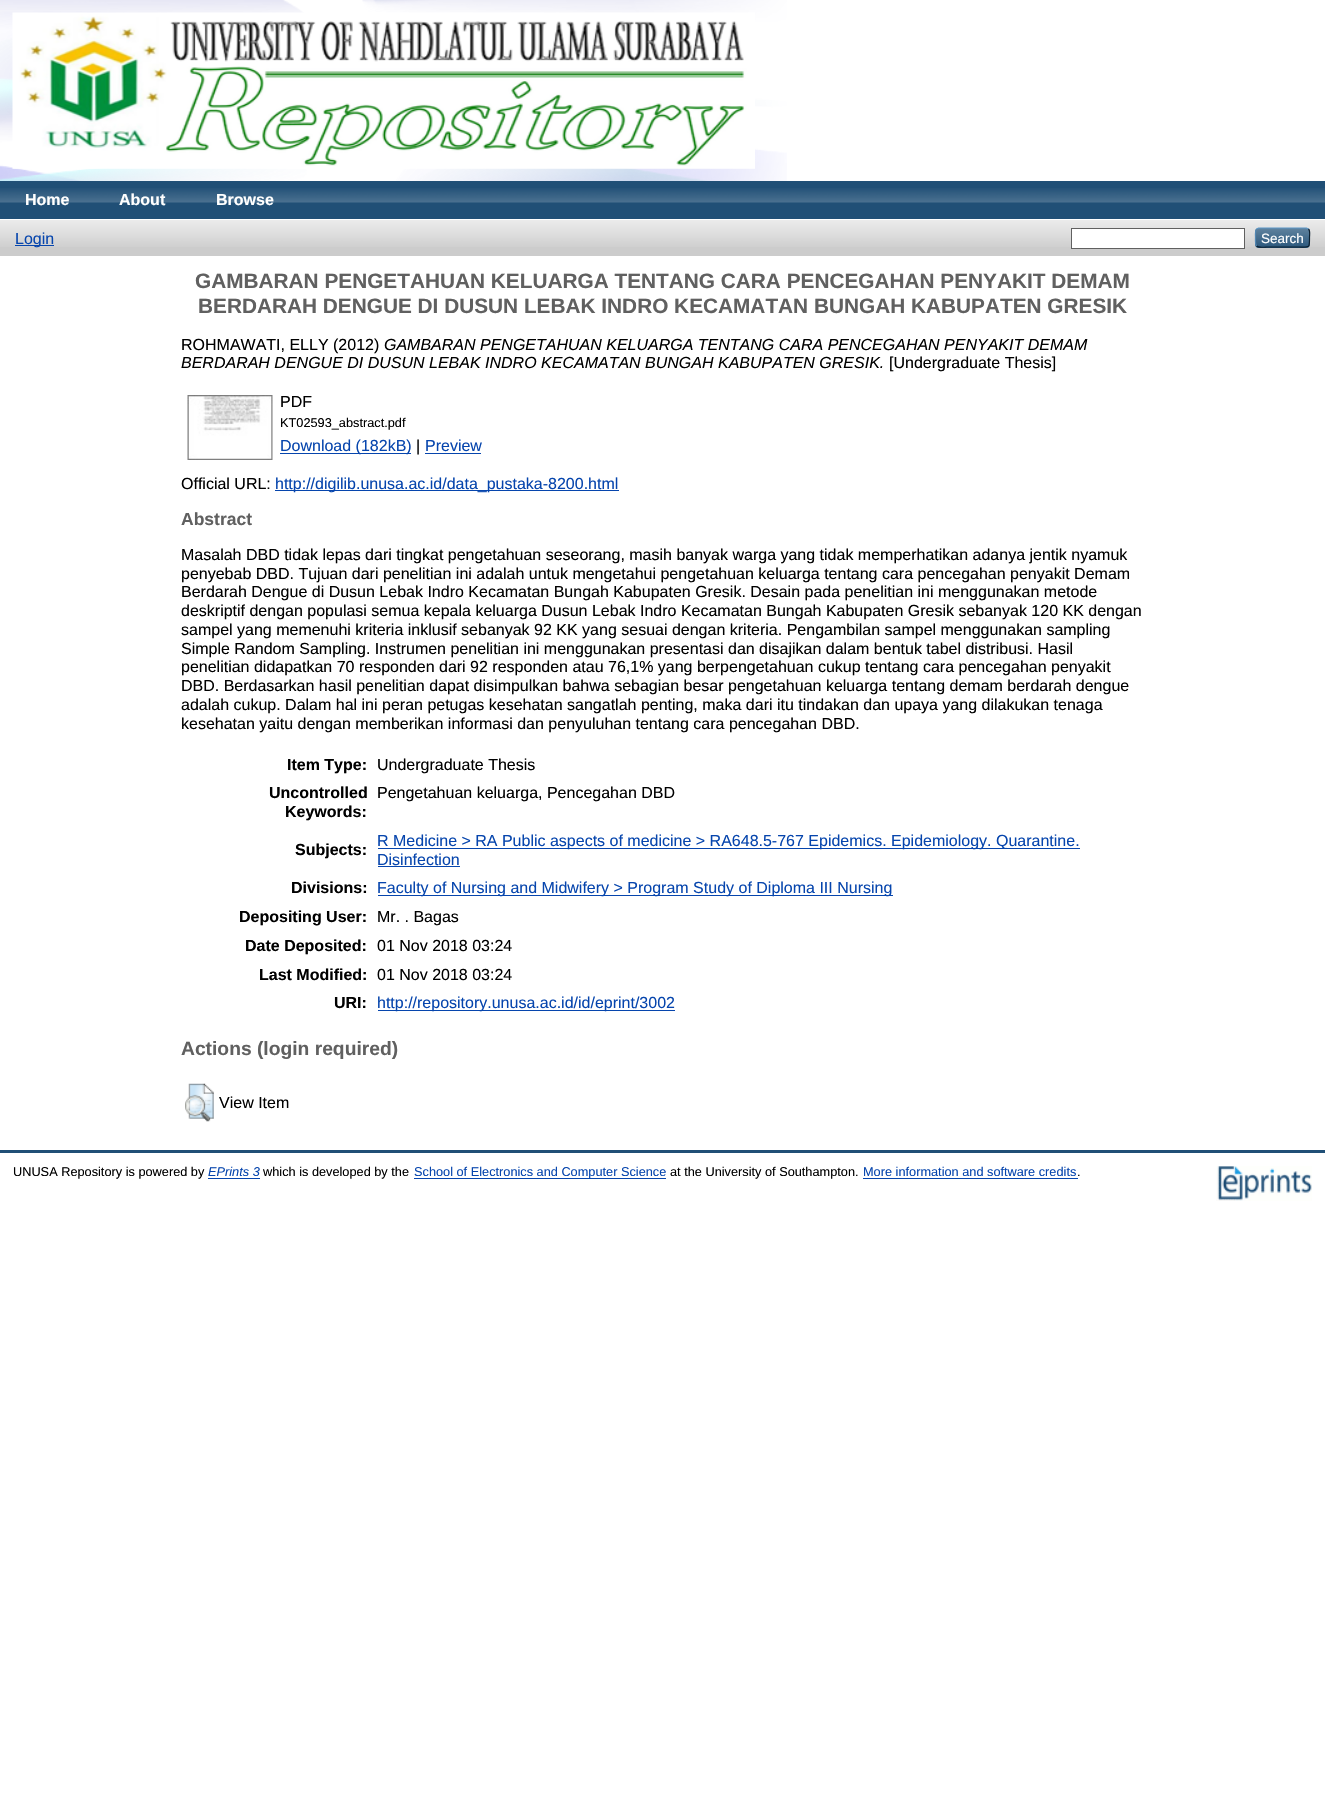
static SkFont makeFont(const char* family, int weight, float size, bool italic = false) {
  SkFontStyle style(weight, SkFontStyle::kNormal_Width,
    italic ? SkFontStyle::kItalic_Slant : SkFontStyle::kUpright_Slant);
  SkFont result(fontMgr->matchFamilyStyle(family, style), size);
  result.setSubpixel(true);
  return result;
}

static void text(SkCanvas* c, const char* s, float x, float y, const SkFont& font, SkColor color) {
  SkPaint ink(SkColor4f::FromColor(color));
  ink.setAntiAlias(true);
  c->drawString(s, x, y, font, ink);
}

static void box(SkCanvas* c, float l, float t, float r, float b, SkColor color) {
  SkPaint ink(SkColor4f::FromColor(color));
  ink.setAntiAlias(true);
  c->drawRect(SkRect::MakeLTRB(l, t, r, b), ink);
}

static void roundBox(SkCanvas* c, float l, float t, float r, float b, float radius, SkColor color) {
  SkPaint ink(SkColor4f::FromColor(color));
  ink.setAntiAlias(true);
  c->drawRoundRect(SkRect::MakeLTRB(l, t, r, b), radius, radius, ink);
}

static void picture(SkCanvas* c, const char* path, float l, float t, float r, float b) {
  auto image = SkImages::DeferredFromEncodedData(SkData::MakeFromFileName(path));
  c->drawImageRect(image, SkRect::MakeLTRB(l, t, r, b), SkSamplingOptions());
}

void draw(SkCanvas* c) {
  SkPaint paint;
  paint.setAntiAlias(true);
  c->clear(0xffffffff);
  picture(c, "img_01.png", 0, 0, 787, 181);
  picture(c, "img_02.png", 12, 12, 755, 169);
  box(c, 0, 181, 1325, 219, 0xff204f76);
  picture(c, "img_03.png", 0, 188, 1325, 203);
  SkFont face1 = makeFont("Liberation Sans", 700, 16);
  text(c, "Home", 25, 205, face1, 0xffffffff);
  text(c, "About", 119, 205, face1, 0xffffffff);
  text(c, "Browse", 216, 205, face1, 0xffffffff);
  box(c, 0, 220, 1325, 256, 0xffcccccc);
  picture(c, "img_04.png", 0, 220, 1325, 247);
  box(c, 15, 245, 54, 246, 0xff0645ad);
  SkFont face2 = makeFont("Liberation Sans", 400, 16);
  text(c, "Login", 15, 244, face2, 0xff0645ad);
  paint.setColor(0xffffffff);
  c->drawRect(SkRect::MakeLTRB(1071.5f, 228.5f, 1244.5f, 248.5f), paint);
  paint.setStyle(SkPaint::kStroke_Style);
  paint.setStrokeWidth(1);
  paint.setColor(0xff606060);
  c->drawRect(SkRect::MakeLTRB(1071.5f, 228.5f, 1244.5f, 248.5f), paint);
  roundBox(c, 1255, 228, 1310, 248, 4, 0xff1f4f76);
  picture(c, "img_05.png", 1255, 228, 1310, 247);
  paint.setStrokeWidth(1.2f);
  paint.setColor(0xff5b97c7);
  c->drawPath(SkPathBuilder().moveTo(1256.5f, 229).lineTo(1258.5f, 228).lineTo(1306.5f, 228).lineTo(1308.5f, 229).detach(), paint);
  paint.setColor(0xff0d2131);
  c->drawPath(SkPathBuilder().moveTo(1308.5f, 229).cubicTo(1310.5f, 231, 1309.5f, 235, 1309.5f, 237.5f).cubicTo(1309.5f, 248.5f, 1310, 247, 1298.5f, 247).lineTo(1266.5f, 247).cubicTo(1266, 247, 1258.5f, 248, 1256.5f, 246).detach(), paint);
  paint.setColor(0xff5287b3);
  c->drawPath(SkPathBuilder().moveTo(1256.5f, 246).cubicTo(1255, 244, 1255.5f, 239.5f, 1255.5f, 237.5f).cubicTo(1255.5f, 235.5f, 1255, 231, 1256.5f, 229).detach(), paint);
  SkFont face3 = makeFont("Liberation Sans", 400, 13.5f);
  text(c, "Search", 1261, 243, face3, 0xffffffff);
  SkFont face4 = makeFont("Liberation Sans", 700, 20.8f);
  text(c, "GAMBARAN PENGETAHUAN KELUARGA TENTANG CARA PENCEGAHAN PENYAKIT DEMAM", 195, 288, face4, 0xff606060);
  text(c, "BERDARAH DENGUE DI DUSUN LEBAK INDRO KECAMATAN BUNGAH KABUPATEN GRESIK", 198, 313, face4, 0xff606060);
  text(c, "ROHMAWATI, ELLY (2012)", 181, 350, face2, 0xff000000);
  SkFont face5 = makeFont("Liberation Sans", 400, 16, true);
  text(c, "GAMBARAN PENGETAHUAN KELUARGA TENTANG CARA PENCEGAHAN PENYAKIT DEMAM", 384, 350, face5, 0xff000000);
  text(c, "BERDARAH DENGUE DI DUSUN LEBAK INDRO KECAMATAN BUNGAH KABUPATEN GRESIK.", 181, 368, face5, 0xff000000);
  text(c, "[Undergraduate Thesis]", 889, 368, face2, 0xff000000);
  picture(c, "img_06.png", 187, 395, 273, 460);
  text(c, "PDF", 280, 407, face2, 0xff000000);
  SkFont face6 = makeFont("Liberation Sans", 400, 12.75f);
  text(c, "KT02593_abstract.pdf", 280, 427, face6, 0xff000000);
  box(c, 280, 453, 411, 454, 0xff0645ad);
  text(c, "Download (182kB)", 280, 451, face2, 0xff0645ad);
  text(c, "|", 416, 451, face2, 0xff000000);
  text(c, "Preview", 425, 451, face2, 0xff0645ad);
  box(c, 425, 453, 481, 454, 0xff0645ad);
  text(c, "Official URL:", 181, 489, face2, 0xff000000);
  box(c, 275, 490, 619, 491, 0xff0645ad);
  text(c, "http://digilib.unusa.ac.id/data_pustaka-8200.html", 275, 489, face2, 0xff0645ad);
  SkFont face7 = makeFont("Liberation Sans", 700, 17.5f);
  text(c, "Abstract", 181, 525, face7, 0xff606060);
  text(c, "Masalah DBD tidak lepas dari tingkat pengetahuan seseorang, masih banyak warga yang tidak memperhatikan adanya jentik nyamuk", 181, 560, face2, 0xff000000);
  text(c, "penyebab DBD. Tujuan dari penelitian ini adalah untuk mengetahui pengetahuan keluarga tentang cara pencegahan penyakit Demam", 181, 579, face2, 0xff000000);
  text(c, "Berdarah Dengue di Dusun Lebak Indro Kecamatan Bungah Kabupaten Gresik. Desain pada penelitian ini menggunakan metode", 181, 597, face2, 0xff000000);
  text(c, "deskriptif dengan populasi semua kepala keluarga Dusun Lebak Indro Kecamatan Bungah Kabupaten Gresik sebanyak 120 KK dengan", 181, 616, face2, 0xff000000);
  text(c, "sampel yang memenuhi kriteria inklusif sebanyak 92 KK yang sesuai dengan kriteria. Pengambilan sampel menggunakan sampling", 181, 635, face2, 0xff000000);
  text(c, "Simple Random Sampling. Instrumen penelitian ini menggunakan presentasi dan disajikan dalam bentuk tabel distribusi. Hasil", 181, 654, face2, 0xff000000);
  text(c, "penelitian didapatkan 70 responden dari 92 responden atau 76,1% yang berpengetahuan cukup tentang cara pencegahan penyakit", 181, 672, face2, 0xff000000);
  text(c, "DBD. Berdasarkan hasil penelitian dapat disimpulkan bahwa sebagian besar pengetahuan keluarga tentang demam berdarah dengue", 181, 691, face2, 0xff000000);
  text(c, "adalah cukup. Dalam hal ini peran petugas kesehatan sangatlah penting, maka dari itu tindakan dan upaya yang dilakukan tenaga", 181, 710, face2, 0xff000000);
  text(c, "kesehatan yaitu dengan memberikan informasi dan penyuluhan tentang cara pencegahan DBD.", 181, 729, face2, 0xff000000);
  text(c, "Item Type:", 287, 770, face1, 0xff000000);
  text(c, "Undergraduate Thesis", 377, 770, face2, 0xff000000);
  text(c, "Uncontrolled", 269, 798, face1, 0xff000000);
  text(c, "Keywords:", 285, 817, face1, 0xff000000);
  text(c, "Pengetahuan keluarga, Pencegahan DBD", 377, 798, face2, 0xff000000);
  text(c, "Subjects:", 295, 855, face1, 0xff000000);
  box(c, 378, 848, 1080, 849, 0xff0645ad);
  text(c, "R Medicine > RA Public aspects of medicine > RA648.5-767 Epidemics. Epidemiology. Quarantine.", 377, 846, face2, 0xff0645ad);
  text(c, "Disinfection", 377, 865, face2, 0xff0645ad);
  box(c, 378, 866, 460, 867, 0xff0645ad);
  text(c, "Divisions:", 291, 893, face1, 0xff000000);
  box(c, 378, 895, 893, 896, 0xff0645ad);
  text(c, "Faculty of Nursing and Midwifery > Program Study of Diploma III Nursing", 377, 893, face2, 0xff0645ad);
  text(c, "Depositing User:", 239, 922, face1, 0xff000000);
  text(c, "Mr. . Bagas", 377, 922, face2, 0xff000000);
  text(c, "Date Deposited:", 245, 951, face1, 0xff000000);
  text(c, "01 Nov 2018 03:24", 377, 951, face2, 0xff000000);
  text(c, "Last Modified:", 259, 980, face1, 0xff000000);
  text(c, "01 Nov 2018 03:24", 377, 980, face2, 0xff000000);
  text(c, "URI:", 334, 1008, face1, 0xff000000);
  box(c, 378, 1010, 675, 1011, 0xff0645ad);
  text(c, "http://repository.unusa.ac.id/id/eprint/3002", 377, 1008, face2, 0xff0645ad);
  SkFont face8 = makeFont("Liberation Sans", 700, 19.25f);
  text(c, "Actions (login required)", 181, 1055, face8, 0xff606060);
  picture(c, "img_07.png", 185, 1083, 214, 1122);
  text(c, "View Item", 219, 1108, face2, 0xff000000);
  box(c, 0, 1150, 1325, 1153, 0xff204f76);
  text(c, "UNUSA Repository is powered by", 13, 1176, face6, 0xff000000);
  SkFont face9 = makeFont("Liberation Sans", 400, 12.75f, true);
  text(c, "EPrints 3", 208, 1176, face9, 0xff0645ad);
  box(c, 208, 1178, 260, 1179, 0xff0645ad);
  text(c, "which is developed by the", 263, 1176, face6, 0xff000000);
  box(c, 414, 1178, 666, 1179, 0xff0645ad);
  text(c, "School of Electronics and Computer Science", 414, 1176, face6, 0xff0645ad);
  text(c, "at the University of Southampton.", 670, 1176, face6, 0xff000000);
  text(c, "More information and software credits", 863, 1176, face6, 0xff0645ad);
  box(c, 863, 1178, 1078, 1179, 0xff0645ad);
  text(c, ".", 1077, 1176, face6, 0xff000000);
  picture(c, "img_08.png", 1216, 1166, 1312, 1201);
}
